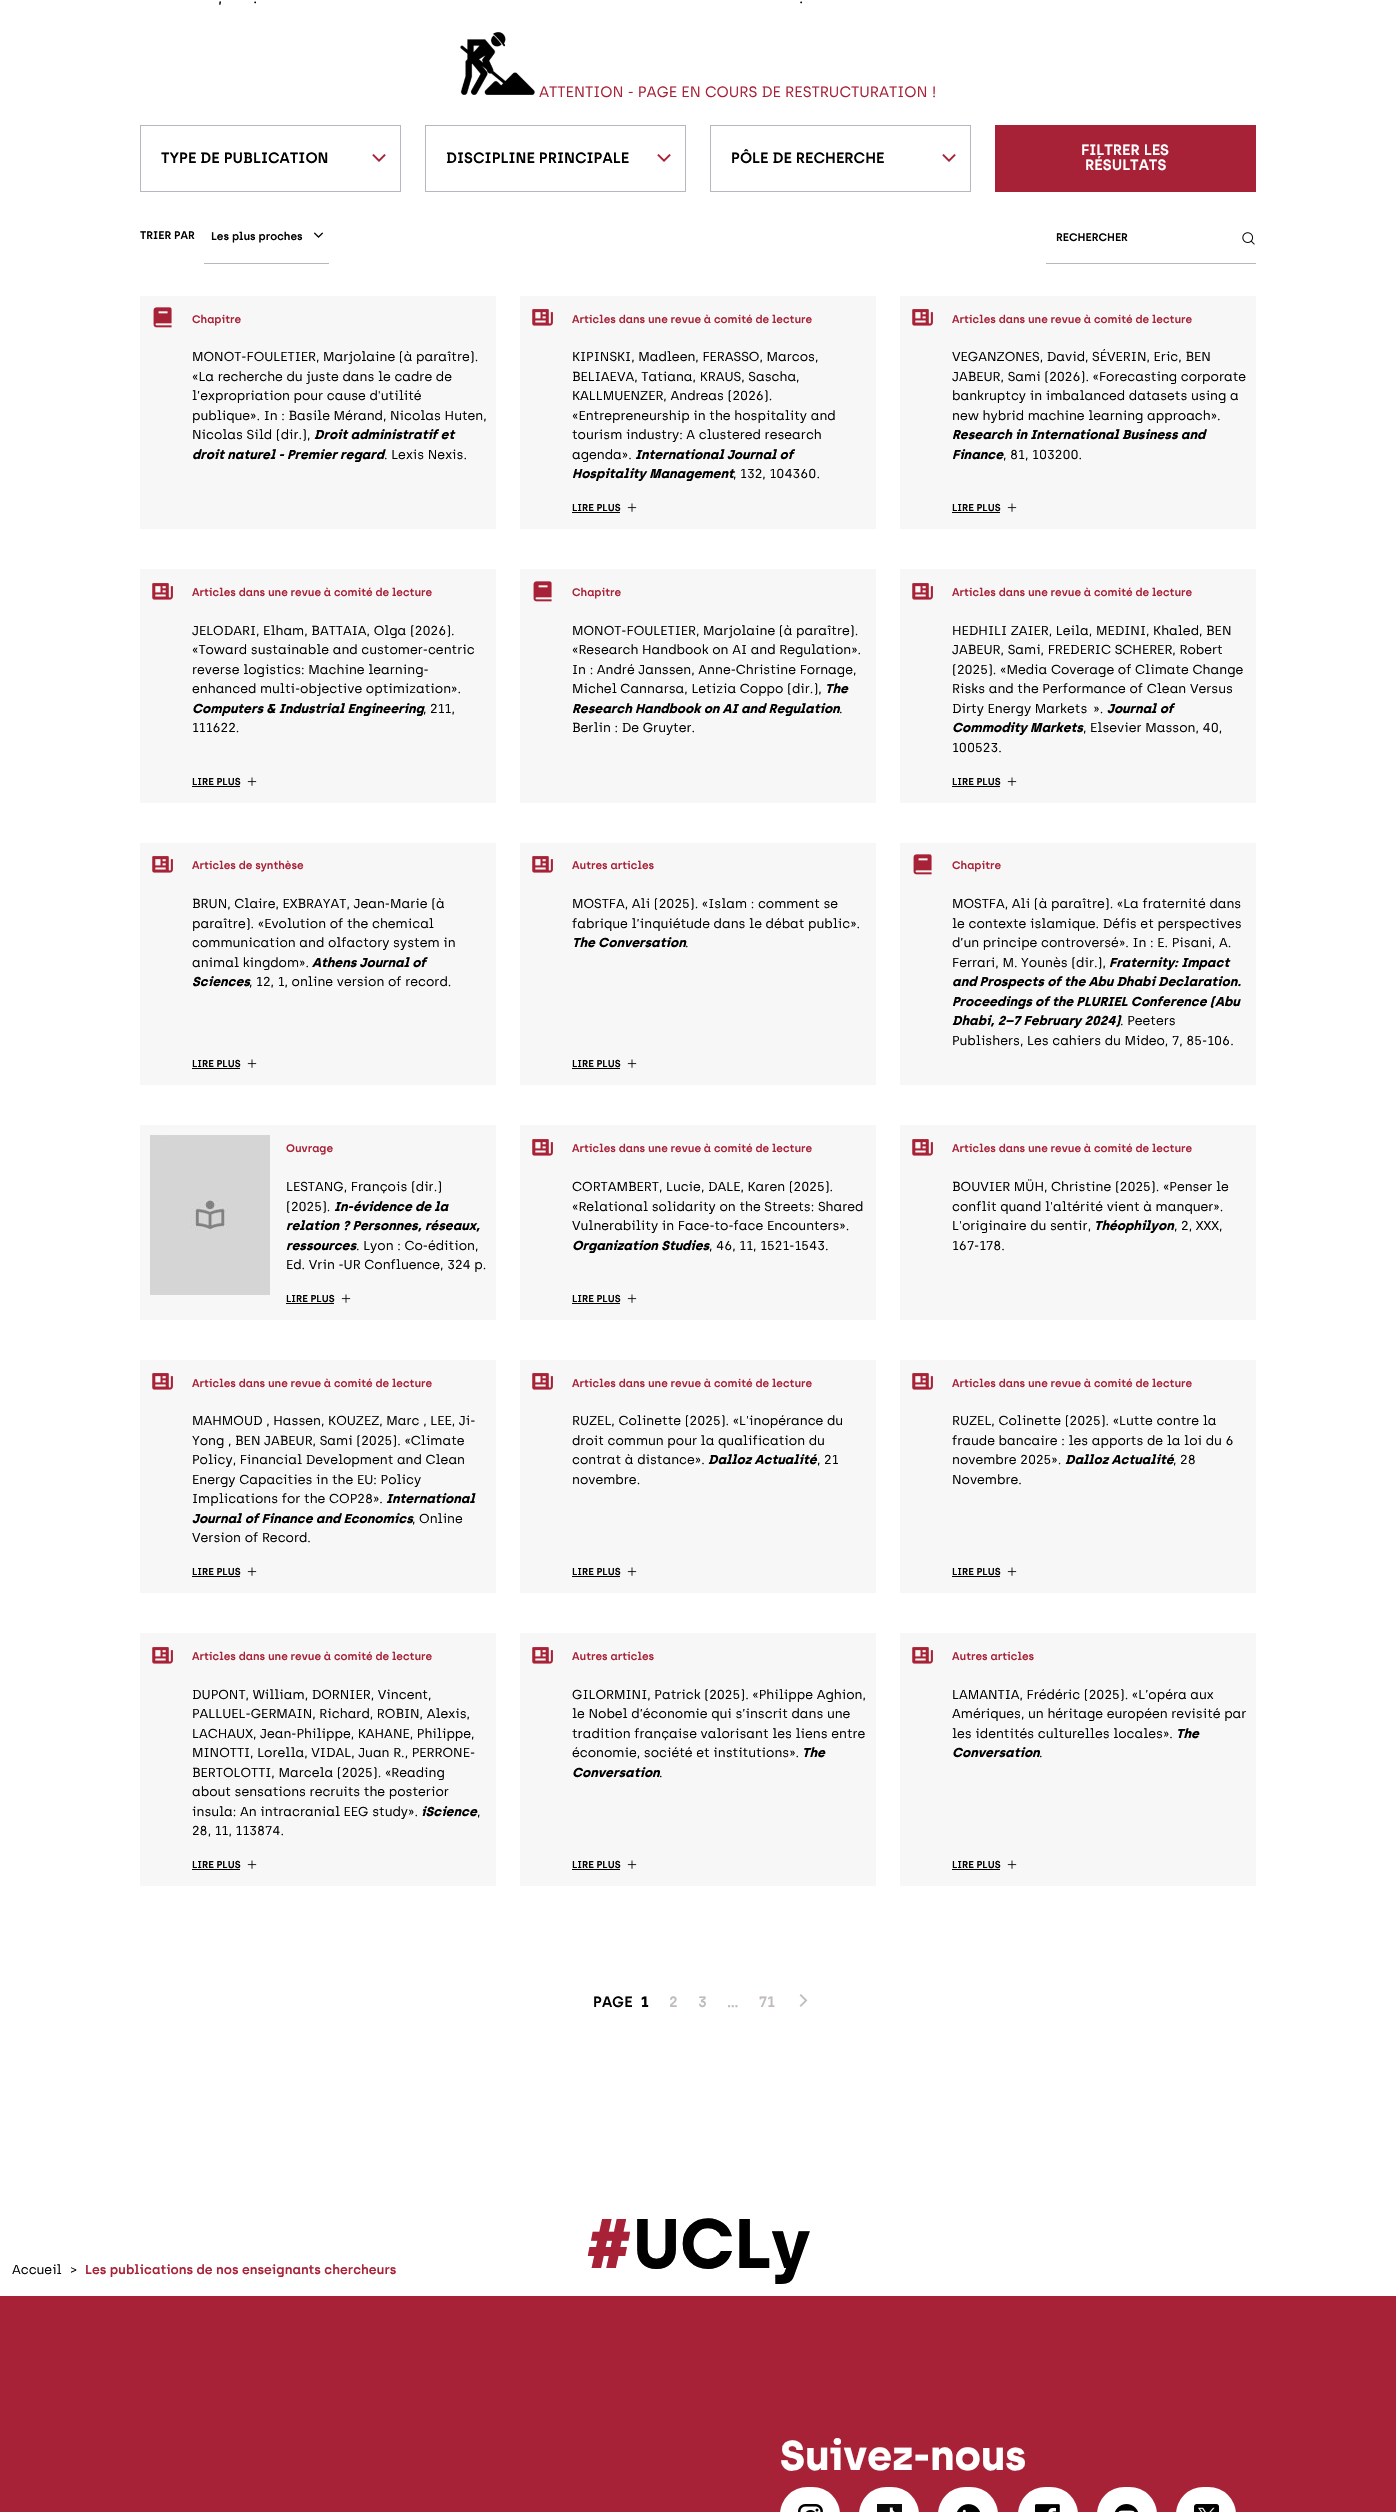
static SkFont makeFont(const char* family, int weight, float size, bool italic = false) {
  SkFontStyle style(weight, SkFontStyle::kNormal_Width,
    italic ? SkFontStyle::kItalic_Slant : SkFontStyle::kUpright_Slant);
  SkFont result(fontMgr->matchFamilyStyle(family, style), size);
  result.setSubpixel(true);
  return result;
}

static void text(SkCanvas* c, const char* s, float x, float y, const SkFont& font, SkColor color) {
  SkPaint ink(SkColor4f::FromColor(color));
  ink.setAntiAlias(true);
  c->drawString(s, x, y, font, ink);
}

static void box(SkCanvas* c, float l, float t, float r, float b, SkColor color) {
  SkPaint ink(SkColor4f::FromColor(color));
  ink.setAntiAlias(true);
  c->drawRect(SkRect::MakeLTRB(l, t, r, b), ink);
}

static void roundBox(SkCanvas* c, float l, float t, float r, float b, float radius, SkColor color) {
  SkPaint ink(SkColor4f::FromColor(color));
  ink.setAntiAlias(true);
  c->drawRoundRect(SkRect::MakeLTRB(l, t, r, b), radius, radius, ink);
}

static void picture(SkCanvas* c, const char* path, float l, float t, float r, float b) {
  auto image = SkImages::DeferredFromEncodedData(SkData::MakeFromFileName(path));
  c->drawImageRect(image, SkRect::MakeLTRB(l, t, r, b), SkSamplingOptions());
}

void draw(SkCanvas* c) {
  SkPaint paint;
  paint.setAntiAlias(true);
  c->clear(0xffffffff);
  SkFont face1 = makeFont("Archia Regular", 400, 16);
  text(c, ",", 218, 3, face1, 0xff000000);
  text(c, ".", 253, 3, face1, 0xff000000);
  text(c, ".", 799, 3, face1, 0xff000000);
  picture(c, "img_01.png", 460, 32, 535, 95);
  SkFont face2 = makeFont("Archia Regular", 400, 15);
  text(c, "ATTENTION - PAGE EN COURS DE RESTRUCTURATION !", 539, 97, face2, 0xffa82237);
  paint.setStyle(SkPaint::kStroke_Style);
  paint.setStrokeWidth(1);
  paint.setColor(0xffb5b8be);
  c->drawRect(SkRect::MakeLTRB(140.5f, 125.5f, 400.5f, 191.5f), paint);
  picture(c, "img_02.png", 372, 154, 386, 162);
  SkFont face3 = makeFont("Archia", 600, 15);
  text(c, "TYPE DE PUBLICATION", 161, 163, face3, 0xff000000);
  c->drawRect(SkRect::MakeLTRB(425.5f, 125.5f, 685.5f, 191.5f), paint);
  picture(c, "img_02.png", 657, 154, 671, 162);
  text(c, "DISCIPLINE PRINCIPALE", 446, 163, face3, 0xff000000);
  c->drawRect(SkRect::MakeLTRB(710.5f, 125.5f, 970.5f, 191.5f), paint);
  picture(c, "img_02.png", 942, 154, 956, 162);
  text(c, "PÔLE DE RECHERCHE", 731, 163, face3, 0xff000000);
  box(c, 995, 125, 1256, 192, 0xffa82237);
  text(c, "FILTRER LES", 1081, 155, face3, 0xffffffff);
  text(c, "RÉSULTATS", 1085, 170, face3, 0xffffffff);
  SkFont face4 = makeFont("Archia", 600, 11);
  text(c, "TRIER PAR", 140, 239, face4, 0xff000000);
  box(c, 204, 263, 329, 264, 0xffb5b8be);
  text(c, "Les plus proches", 211, 240, face4, 0xff000000);
  picture(c, "img_03.png", 313, 232, 324, 238);
  box(c, 1046, 263, 1256, 264, 0xffb5b8be);
  text(c, "RECHERCHER", 1056, 241, face4, 0xff000000);
  picture(c, "img_04.png", 1242, 232, 1255, 245);
  box(c, 140, 296, 496, 529, 0xfff7f7f7);
  picture(c, "img_05.png", 153, 307, 172, 328);
  text(c, "Chapitre", 192, 323, face4, 0xffa82237);
  SkFont face5 = makeFont("Archia Regular", 400, 13);
  text(c, "MONOT-FOULETIER, Marjolaine (à paraître).", 192, 361, face5, 0xff000000);
  text(c, "«La recherche du juste dans le cadre de", 192, 381, face5, 0xff000000);
  text(c, "l’expropriation pour cause d'utilité", 192, 400, face5, 0xff000000);
  text(c, "publique». In : Basile Mérand, Nicolas Huten,", 192, 420, face5, 0xff000000);
  text(c, "Nicolas Sild (dir.),", 192, 439, face5, 0xff000000);
  SkFont face6 = makeFont("Archia", 700, 13, true);
  text(c, "Droit administratif et", 314, 439, face6, 0xff000000);
  text(c, "droit naturel - Premier regard", 192, 459, face6, 0xff000000);
  text(c, ". Lexis Nexis.", 384, 459, face5, 0xff000000);
  box(c, 520, 296, 876, 529, 0xfff7f7f7);
  picture(c, "img_06.png", 532, 309, 553, 326);
  text(c, "Articles dans une revue à comité de lecture", 572, 323, face4, 0xffa82237);
  text(c, "KIPINSKI, Madleen, FERASSO, Marcos,", 572, 361, face5, 0xff000000);
  text(c, "BELIAEVA, Tatiana, KRAUS, Sascha,", 572, 381, face5, 0xff000000);
  text(c, "KALLMUENZER, Andreas (2026).", 572, 400, face5, 0xff000000);
  text(c, "«Entrepreneurship in the hospitality and", 572, 420, face5, 0xff000000);
  text(c, "tourism industry: A clustered research", 572, 439, face5, 0xff000000);
  text(c, "agenda».", 572, 459, face5, 0xff000000);
  text(c, "International Journal of", 635, 459, face6, 0xff000000);
  text(c, "Hospitality Management", 572, 478, face6, 0xff000000);
  text(c, ", 132, 104360.", 733, 478, face5, 0xff000000);
  SkFont face7 = makeFont("Archia", 600, 10);
  text(c, "LIRE PLUS", 572, 511, face7, 0xff000000);
  box(c, 572, 512, 620, 513, 0xff000000);
  picture(c, "img_07.png", 627, 503, 637, 512);
  box(c, 900, 296, 1256, 529, 0xfff7f7f7);
  picture(c, "img_06.png", 912, 309, 933, 326);
  text(c, "Articles dans une revue à comité de lecture", 952, 323, face4, 0xffa82237);
  text(c, "VEGANZONES, David, SÉVERIN, Eric, BEN", 952, 361, face5, 0xff000000);
  text(c, "JABEUR, Sami (2026). «Forecasting corporate", 952, 381, face5, 0xff000000);
  text(c, "bankruptcy in imbalanced datasets using a", 952, 400, face5, 0xff000000);
  text(c, "new hybrid machine learning approach».", 952, 420, face5, 0xff000000);
  text(c, "Research in International Business and", 952, 439, face6, 0xff000000);
  text(c, "Finance", 952, 459, face6, 0xff000000);
  text(c, ", 81, 103200.", 1003, 459, face5, 0xff000000);
  text(c, "LIRE PLUS", 952, 511, face7, 0xff000000);
  box(c, 952, 512, 1000, 513, 0xff000000);
  picture(c, "img_07.png", 1007, 503, 1017, 512);
  box(c, 140, 569, 496, 803, 0xfff7f7f7);
  picture(c, "img_06.png", 152, 583, 173, 600);
  text(c, "Articles dans une revue à comité de lecture", 192, 596, face4, 0xffa82237);
  text(c, "JELODARI, Elham, BATTAIA, Olga (2026).", 192, 635, face5, 0xff000000);
  text(c, "«Toward sustainable and customer-centric", 192, 654, face5, 0xff000000);
  text(c, "reverse logistics: Machine learning-", 192, 674, face5, 0xff000000);
  text(c, "enhanced multi-objective optimization».", 192, 693, face5, 0xff000000);
  text(c, "Computers & Industrial Engineering", 192, 713, face6, 0xff000000);
  text(c, ", 211,", 423, 713, face5, 0xff000000);
  text(c, "111622.", 192, 732, face5, 0xff000000);
  text(c, "LIRE PLUS", 192, 785, face7, 0xff000000);
  box(c, 192, 786, 240, 787, 0xff000000);
  picture(c, "img_07.png", 247, 777, 257, 786);
  box(c, 520, 569, 876, 803, 0xfff7f7f7);
  picture(c, "img_05.png", 533, 581, 552, 602);
  text(c, "Chapitre", 572, 596, face4, 0xffa82237);
  text(c, "MONOT-FOULETIER, Marjolaine (à paraître).", 572, 635, face5, 0xff000000);
  text(c, "«Research Handbook on AI and Regulation».", 572, 654, face5, 0xff000000);
  text(c, "In : André Janssen, Anne-Christine Fornage,", 572, 674, face5, 0xff000000);
  text(c, "Michel Cannarsa, Letizia Coppo (dir.),", 572, 693, face5, 0xff000000);
  text(c, "The", 825, 693, face6, 0xff000000);
  text(c, "Research Handbook on AI and Regulation", 572, 713, face6, 0xff000000);
  text(c, ".", 839, 713, face5, 0xff000000);
  text(c, "Berlin : De Gruyter.", 572, 732, face5, 0xff000000);
  box(c, 900, 569, 1256, 803, 0xfff7f7f7);
  picture(c, "img_06.png", 912, 583, 933, 600);
  text(c, "Articles dans une revue à comité de lecture", 952, 596, face4, 0xffa82237);
  text(c, "HEDHILI ZAIER, Leila, MEDINI, Khaled, BEN", 952, 635, face5, 0xff000000);
  text(c, "JABEUR, Sami, FREDERIC SCHERER, Robert", 952, 654, face5, 0xff000000);
  text(c, "(2025). «Media Coverage of Climate Change", 952, 674, face5, 0xff000000);
  text(c, "Risks and the Performance of Clean Versus", 952, 693, face5, 0xff000000);
  text(c, "Dirty Energy Markets  ».", 952, 713, face5, 0xff000000);
  text(c, "Journal of", 1107, 713, face6, 0xff000000);
  text(c, "Commodity Markets", 952, 732, face6, 0xff000000);
  text(c, ", Elsevier Masson, 40,", 1083, 732, face5, 0xff000000);
  text(c, "100523.", 952, 752, face5, 0xff000000);
  text(c, "LIRE PLUS", 952, 785, face7, 0xff000000);
  box(c, 952, 786, 1000, 787, 0xff000000);
  picture(c, "img_07.png", 1007, 777, 1017, 786);
  box(c, 140, 843, 496, 1085, 0xfff7f7f7);
  picture(c, "img_06.png", 152, 856, 173, 873);
  text(c, "Articles de synthèse", 192, 869, face4, 0xffa82237);
  text(c, "BRUN, Claire, EXBRAYAT, Jean-Marie (à", 192, 908, face5, 0xff000000);
  text(c, "paraître). «Evolution of the chemical", 192, 928, face5, 0xff000000);
  text(c, "communication and olfactory system in", 192, 947, face5, 0xff000000);
  text(c, "animal kingdom».", 192, 967, face5, 0xff000000);
  text(c, "Athens Journal of", 312, 967, face6, 0xff000000);
  text(c, "Sciences", 192, 986, face6, 0xff000000);
  text(c, ", 12, 1, online version of record.", 249, 986, face5, 0xff000000);
  text(c, "LIRE PLUS", 192, 1067, face7, 0xff000000);
  box(c, 192, 1068, 240, 1069, 0xff000000);
  picture(c, "img_07.png", 247, 1059, 257, 1068);
  box(c, 520, 843, 876, 1085, 0xfff7f7f7);
  picture(c, "img_06.png", 532, 856, 553, 873);
  text(c, "Autres articles", 572, 869, face4, 0xffa82237);
  text(c, "MOSTFA, Ali (2025). «Islam : comment se", 572, 908, face5, 0xff000000);
  text(c, "fabrique l’inquiétude dans le débat public».", 572, 928, face5, 0xff000000);
  text(c, "The Conversation", 572, 947, face6, 0xff000000);
  text(c, ".", 685, 947, face5, 0xff000000);
  text(c, "LIRE PLUS", 572, 1067, face7, 0xff000000);
  box(c, 572, 1068, 620, 1069, 0xff000000);
  picture(c, "img_07.png", 627, 1059, 637, 1068);
  box(c, 900, 843, 1256, 1085, 0xfff7f7f7);
  picture(c, "img_05.png", 913, 854, 932, 875);
  text(c, "Chapitre", 952, 869, face4, 0xffa82237);
  text(c, "MOSTFA, Ali (à paraître). «La fraternité dans", 952, 908, face5, 0xff000000);
  text(c, "le contexte islamique. Défis et perspectives", 952, 928, face5, 0xff000000);
  text(c, "d’un principe controversé». In : E. Pisani, A.", 952, 947, face5, 0xff000000);
  text(c, "Ferrari, M. Younès (dir.),", 952, 967, face5, 0xff000000);
  text(c, "Fraternity: Impact", 1109, 967, face6, 0xff000000);
  text(c, "and Prospects of the Abu Dhabi Declaration.", 952, 986, face6, 0xff000000);
  text(c, "Proceedings of the PLURIEL Conference (Abu", 952, 1006, face6, 0xff000000);
  text(c, "Dhabi, 2–7 February 2024)", 952, 1025, face6, 0xff000000);
  text(c, ". Peeters", 1120, 1025, face5, 0xff000000);
  text(c, "Publishers, Les cahiers du Mideo, 7, 85-106.", 952, 1045, face5, 0xff000000);
  box(c, 140, 1125, 496, 1320, 0xfff7f7f7);
  picture(c, "img_08.png", 150, 1135, 270, 1295);
  text(c, "Ouvrage", 286, 1152, face4, 0xffa82237);
  text(c, "LESTANG, François (dir.)", 286, 1191, face5, 0xff000000);
  text(c, "(2025).", 286, 1211, face5, 0xff000000);
  text(c, "In-évidence de la", 334, 1211, face6, 0xff000000);
  text(c, "relation ? Personnes, réseaux,", 286, 1230, face6, 0xff000000);
  text(c, "ressources", 286, 1250, face6, 0xff000000);
  text(c, ". Lyon : Co-édition,", 356, 1250, face5, 0xff000000);
  text(c, "Ed. Vrin -UR Confluence, 324 p.", 286, 1269, face5, 0xff000000);
  text(c, "LIRE PLUS", 286, 1302, face7, 0xff000000);
  box(c, 286, 1303, 334, 1304, 0xff000000);
  picture(c, "img_07.png", 341, 1294, 351, 1303);
  box(c, 520, 1125, 876, 1320, 0xfff7f7f7);
  picture(c, "img_06.png", 532, 1139, 553, 1156);
  text(c, "Articles dans une revue à comité de lecture", 572, 1152, face4, 0xffa82237);
  text(c, "CORTAMBERT, Lucie, DALE, Karen (2025).", 572, 1191, face5, 0xff000000);
  text(c, "«Relational solidarity on the Streets: Shared", 572, 1211, face5, 0xff000000);
  text(c, "Vulnerability in Face-to-face Encounters».", 572, 1230, face5, 0xff000000);
  text(c, "Organization Studies", 572, 1250, face6, 0xff000000);
  text(c, ", 46, 11, 1521-1543.", 709, 1250, face5, 0xff000000);
  text(c, "LIRE PLUS", 572, 1302, face7, 0xff000000);
  box(c, 572, 1303, 620, 1304, 0xff000000);
  picture(c, "img_07.png", 627, 1294, 637, 1303);
  box(c, 900, 1125, 1256, 1320, 0xfff7f7f7);
  picture(c, "img_06.png", 912, 1139, 933, 1156);
  text(c, "Articles dans une revue à comité de lecture", 952, 1152, face4, 0xffa82237);
  text(c, "BOUVIER MÜH, Christine (2025). «Penser le", 952, 1191, face5, 0xff000000);
  text(c, "conflit quand l'altérité vient à manquer».", 952, 1211, face5, 0xff000000);
  text(c, "L'originaire du sentir,", 952, 1230, face5, 0xff000000);
  text(c, "Théophilyon", 1094, 1230, face6, 0xff000000);
  text(c, ", 2, XXX,", 1174, 1230, face5, 0xff000000);
  text(c, "167-178.", 952, 1250, face5, 0xff000000);
  box(c, 140, 1360, 496, 1593, 0xfff7f7f7);
  picture(c, "img_06.png", 152, 1373, 173, 1390);
  text(c, "Articles dans une revue à comité de lecture", 192, 1387, face4, 0xffa82237);
  text(c, "MAHMOUD , Hassen, KOUZEZ, Marc , LEE, Ji-", 192, 1425, face5, 0xff000000);
  text(c, "Yong , BEN JABEUR, Sami (2025). «Climate", 192, 1445, face5, 0xff000000);
  text(c, "Policy, Financial Development and Clean", 192, 1464, face5, 0xff000000);
  text(c, "Energy Capacities in the EU: Policy", 192, 1484, face5, 0xff000000);
  text(c, "Implications for the COP28».", 192, 1503, face5, 0xff000000);
  text(c, "International", 386, 1503, face6, 0xff000000);
  text(c, "Journal of Finance and Economics", 192, 1523, face6, 0xff000000);
  text(c, ", Online", 412, 1523, face5, 0xff000000);
  text(c, "Version of Record.", 192, 1542, face5, 0xff000000);
  text(c, "LIRE PLUS", 192, 1575, face7, 0xff000000);
  box(c, 192, 1576, 240, 1577, 0xff000000);
  picture(c, "img_07.png", 247, 1567, 257, 1576);
  box(c, 520, 1360, 876, 1593, 0xfff7f7f7);
  picture(c, "img_06.png", 532, 1373, 553, 1390);
  text(c, "Articles dans une revue à comité de lecture", 572, 1387, face4, 0xffa82237);
  text(c, "RUZEL, Colinette (2025). «L'inopérance du", 572, 1425, face5, 0xff000000);
  text(c, "droit commun pour la qualification du", 572, 1445, face5, 0xff000000);
  text(c, "contrat à distance».", 572, 1464, face5, 0xff000000);
  text(c, "Dalloz Actualité", 708, 1464, face6, 0xff000000);
  text(c, ", 21", 817, 1464, face5, 0xff000000);
  text(c, "novembre.", 572, 1484, face5, 0xff000000);
  text(c, "LIRE PLUS", 572, 1575, face7, 0xff000000);
  box(c, 572, 1576, 620, 1577, 0xff000000);
  picture(c, "img_07.png", 627, 1567, 637, 1576);
  box(c, 900, 1360, 1256, 1593, 0xfff7f7f7);
  picture(c, "img_06.png", 912, 1373, 933, 1390);
  text(c, "Articles dans une revue à comité de lecture", 952, 1387, face4, 0xffa82237);
  text(c, "RUZEL, Colinette (2025). «Lutte contre la", 952, 1425, face5, 0xff000000);
  text(c, "fraude bancaire : les apports de la loi du 6", 952, 1445, face5, 0xff000000);
  text(c, "novembre 2025».", 952, 1464, face5, 0xff000000);
  text(c, "Dalloz Actualité", 1065, 1464, face6, 0xff000000);
  text(c, ", 28", 1173, 1464, face5, 0xff000000);
  text(c, "Novembre.", 952, 1484, face5, 0xff000000);
  text(c, "LIRE PLUS", 952, 1575, face7, 0xff000000);
  box(c, 952, 1576, 1000, 1577, 0xff000000);
  picture(c, "img_07.png", 1007, 1567, 1017, 1576);
  box(c, 140, 1633, 496, 1886, 0xfff7f7f7);
  picture(c, "img_06.png", 152, 1647, 173, 1664);
  text(c, "Articles dans une revue à comité de lecture", 192, 1660, face4, 0xffa82237);
  text(c, "DUPONT, William, DORNIER, Vincent,", 192, 1699, face5, 0xff000000);
  text(c, "PALLUEL-GERMAIN, Richard, ROBIN, Alexis,", 192, 1718, face5, 0xff000000);
  text(c, "LACHAUX, Jean-Philippe, KAHANE, Philippe,", 192, 1738, face5, 0xff000000);
  text(c, "MINOTTI, Lorella, VIDAL, Juan R., PERRONE-", 192, 1757, face5, 0xff000000);
  text(c, "BERTOLOTTI, Marcela (2025). «Reading", 192, 1777, face5, 0xff000000);
  text(c, "about sensations recruits the posterior", 192, 1796, face5, 0xff000000);
  text(c, "insula: An intracranial EEG study».", 192, 1816, face5, 0xff000000);
  text(c, "iScience", 421, 1816, face6, 0xff000000);
  text(c, ",", 477, 1816, face5, 0xff000000);
  text(c, "28, 11, 113874.", 192, 1835, face5, 0xff000000);
  text(c, "LIRE PLUS", 192, 1868, face7, 0xff000000);
  box(c, 192, 1869, 240, 1870, 0xff000000);
  picture(c, "img_07.png", 247, 1860, 257, 1869);
  box(c, 520, 1633, 876, 1886, 0xfff7f7f7);
  picture(c, "img_06.png", 532, 1647, 553, 1664);
  text(c, "Autres articles", 572, 1660, face4, 0xffa82237);
  text(c, "GILORMINI, Patrick (2025). «Philippe Aghion,", 572, 1699, face5, 0xff000000);
  text(c, "le Nobel d’économie qui s’inscrit dans une", 572, 1718, face5, 0xff000000);
  text(c, "tradition française valorisant les liens entre", 572, 1738, face5, 0xff000000);
  text(c, "économie, société et institutions».", 572, 1757, face5, 0xff000000);
  text(c, "The", 802, 1757, face6, 0xff000000);
  text(c, "Conversation", 572, 1777, face6, 0xff000000);
  text(c, ".", 659, 1777, face5, 0xff000000);
  text(c, "LIRE PLUS", 572, 1868, face7, 0xff000000);
  box(c, 572, 1869, 620, 1870, 0xff000000);
  picture(c, "img_07.png", 627, 1860, 637, 1869);
  box(c, 900, 1633, 1256, 1886, 0xfff7f7f7);
  picture(c, "img_06.png", 912, 1647, 933, 1664);
  text(c, "Autres articles", 952, 1660, face4, 0xffa82237);
  text(c, "LAMANTIA, Frédéric (2025). «L’opéra aux", 952, 1699, face5, 0xff000000);
  text(c, "Amériques, un héritage européen revisité par", 952, 1718, face5, 0xff000000);
  text(c, "les identités culturelles locales».", 952, 1738, face5, 0xff000000);
  text(c, "The", 1176, 1738, face6, 0xff000000);
  text(c, "Conversation", 952, 1757, face6, 0xff000000);
  text(c, ".", 1039, 1757, face5, 0xff000000);
  text(c, "LIRE PLUS", 952, 1868, face7, 0xff000000);
  box(c, 952, 1869, 1000, 1870, 0xff000000);
  picture(c, "img_07.png", 1007, 1860, 1017, 1869);
  text(c, "PAGE", 593, 2007, face3, 0xff000000);
  SkFont face8 = makeFont("Archia", 700, 15);
  text(c, "1", 641, 2007, face8, 0xff000000);
  text(c, "2", 669, 2007, face3, 0xffc2bbbb);
  text(c, "3", 698, 2007, face3, 0xffc2bbbb);
  text(c, "…", 727, 2007, face3, 0xffc2bbbb);
  text(c, "71", 759, 2007, face3, 0xffc2bbbb);
  picture(c, "img_09.png", 799, 1994, 808, 2007);
  text(c, "Accueil", 12, 2274, face5, 0xff000000);
  text(c, ">", 70, 2274, face5, 0xff000000);
  SkFont face9 = makeFont("Archia", 600, 13);
  text(c, "Les publications de nos enseignants chercheurs", 85, 2274, face9, 0xffa82237);
  SkFont face10 = makeFont("Archia", 700, 70);
  text(c, "#", 585, 2268, face10, 0xffa82237);
  text(c, "UCLy", 633, 2268, face10, 0xff000000);
  box(c, 0, 2296, 1396, 2512, 0xffa82237);
  SkFont face11 = makeFont("Archia", 700, 42);
  text(c, "Suivez-nous", 780, 2470, face11, 0xffffffff);
  roundBox(c, 780, 2487, 840, 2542, 30, 0xffffffff);
  picture(c, "img_10.png", 798, 2504, 823, 2512);
  roundBox(c, 859, 2487, 919, 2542, 30, 0xffffffff);
  picture(c, "img_11.png", 877, 2504, 902, 2512);
  roundBox(c, 938, 2487, 998, 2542, 30, 0xffffffff);
  picture(c, "img_12.png", 957, 2504, 980, 2512);
  roundBox(c, 1018, 2487, 1078, 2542, 30, 0xffffffff);
  picture(c, "img_13.png", 1035, 2504, 1060, 2512);
  roundBox(c, 1097, 2487, 1157, 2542, 30, 0xffffffff);
  picture(c, "img_14.png", 1114, 2504, 1138, 2512);
  roundBox(c, 1176, 2487, 1236, 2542, 30, 0xffffffff);
  picture(c, "img_15.png", 1194, 2504, 1219, 2512);
}
